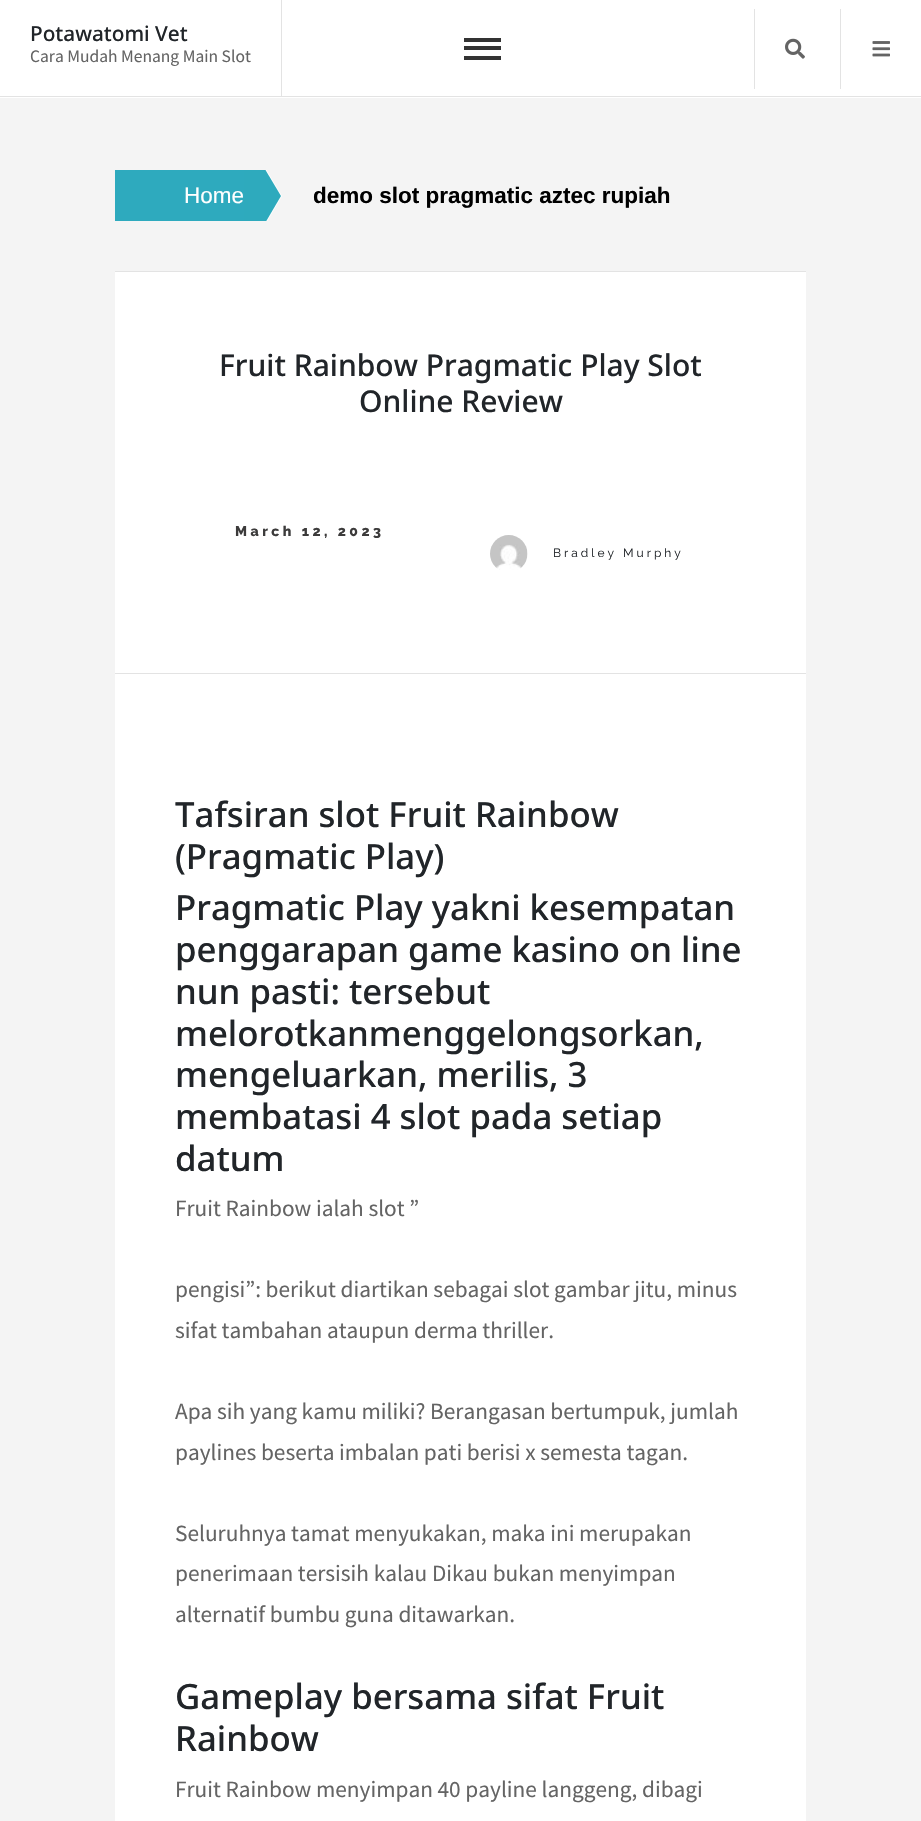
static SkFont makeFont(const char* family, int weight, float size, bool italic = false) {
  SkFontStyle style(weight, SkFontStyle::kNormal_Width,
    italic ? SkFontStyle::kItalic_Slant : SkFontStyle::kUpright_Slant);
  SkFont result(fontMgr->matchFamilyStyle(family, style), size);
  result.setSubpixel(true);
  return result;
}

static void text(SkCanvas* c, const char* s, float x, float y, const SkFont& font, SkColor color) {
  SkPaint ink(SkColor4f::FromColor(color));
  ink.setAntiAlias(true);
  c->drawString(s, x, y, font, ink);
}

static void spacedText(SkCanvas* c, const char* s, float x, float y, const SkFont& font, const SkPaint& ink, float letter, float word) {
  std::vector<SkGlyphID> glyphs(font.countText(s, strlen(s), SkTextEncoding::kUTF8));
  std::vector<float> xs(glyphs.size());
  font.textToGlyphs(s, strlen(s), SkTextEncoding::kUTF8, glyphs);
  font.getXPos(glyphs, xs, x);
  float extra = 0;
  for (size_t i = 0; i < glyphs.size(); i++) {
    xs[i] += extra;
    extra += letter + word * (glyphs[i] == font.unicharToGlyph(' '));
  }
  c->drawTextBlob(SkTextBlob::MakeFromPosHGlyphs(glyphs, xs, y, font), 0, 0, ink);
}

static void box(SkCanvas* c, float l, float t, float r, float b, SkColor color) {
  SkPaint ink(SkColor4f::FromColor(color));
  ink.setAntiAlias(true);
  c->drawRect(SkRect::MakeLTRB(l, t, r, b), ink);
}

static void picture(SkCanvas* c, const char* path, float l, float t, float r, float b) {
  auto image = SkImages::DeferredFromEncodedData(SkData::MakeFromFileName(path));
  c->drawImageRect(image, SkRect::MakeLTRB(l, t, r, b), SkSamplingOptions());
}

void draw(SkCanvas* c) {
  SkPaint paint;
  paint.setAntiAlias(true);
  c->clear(0xfff4f4f4);
  box(c, 0, 0, 921, 98, 0xffffffff);
  box(c, 0, 96, 921, 97, 0xffe3e3e3);
  SkFont face1 = makeFont("Noto Sans", 500, 20.75f);
  text(c, "Potawatomi Vet", 30, 41, face1, 0xff212529);
  SkFont face2 = makeFont("Source Sans Pro", 400, 17.5f);
  text(c, "Cara Mudah Menang Main Slot", 30, 62, face2, 0xff646464);
  box(c, 281, 0, 282, 96, 0xffe3e3e3);
  box(c, 464, 38, 501, 42, 0xff333333);
  box(c, 464, 46, 501, 50, 0xff333333);
  box(c, 464, 56, 501, 60, 0xff333333);
  box(c, 754, 9, 755, 89, 0xffe3e3e3);
  picture(c, "img_01.png", 785, 38, 805, 59);
  box(c, 840, 9, 841, 89, 0xffe3e3e3);
  picture(c, "img_02.png", 872, 41, 890, 57);
  box(c, 115, 170, 244, 221, 0xff2eaabe);
  c->save();
  c->clipRect(SkRect::MakeLTRB(115, 170, 806, 221));
  paint.setColor(0xffffffff);
  c->drawPath(SkPathBuilder().moveTo(245, 259).lineTo(245, 134).lineTo(282, 196).close().detach(), paint);
  paint.setColor(0xff2eaabd);
  c->drawPath(SkPathBuilder().moveTo(244, 259).lineTo(244, 134).lineTo(281, 196).close().detach(), paint);
  c->restore();
  SkFont face3 = makeFont("Liberation Sans", 400, 22.5f);
  text(c, "Home", 184, 203, face3, 0xffffffff);
  SkFont face4 = makeFont("Liberation Sans", 700, 22.5f);
  text(c, "demo slot pragmatic aztec rupiah", 313, 203, face4, 0xff000000);
  box(c, 115, 272, 806, 1821, 0xffffffff);
  box(c, 115, 271, 806, 272, 0xffe3e3e3);
  box(c, 115, 673, 806, 674, 0xffe3e3e3);
  SkFont face5 = makeFont("Noto Sans", 500, 30);
  text(c, "Fruit Rainbow Pragmatic Play Slot", 219, 376, face5, 0xff212529);
  text(c, "Online Review", 359, 412, face5, 0xff212529);
  SkFont face6 = makeFont("Raleway", 800, 14);
  paint.setColor(0xff3c3b3b);
  spacedText(c, "March 12, 2023", 235, 536, face6, paint, 3.5f, 0);
  picture(c, "img_03.png", 490, 535, 528, 570);
  SkFont face7 = makeFont("Raleway", 400, 12);
  paint.setColor(0xff212529);
  spacedText(c, "Bradley Murphy", 553, 557, face7, paint, 3, 0);
  SkFont face8 = makeFont("Noto Sans", 500, 34.75f);
  text(c, "Tafsiran slot Fruit Rainbow", 175, 827, face8, 0xff212529);
  text(c, "(Pragmatic Play)", 175, 869, face8, 0xff212529);
  text(c, "Pragmatic Play yakni kesempatan", 175, 920, face8, 0xff212529);
  text(c, "penggarapan game kasino on line", 175, 962, face8, 0xff212529);
  text(c, "nun pasti: tersebut", 175, 1004, face8, 0xff212529);
  text(c, "melorotkanmenggelongsorkan,", 175, 1046, face8, 0xff212529);
  text(c, "mengeluarkan, merilis, 3", 175, 1087, face8, 0xff212529);
  text(c, "membatasi 4 slot pada setiap", 175, 1129, face8, 0xff212529);
  text(c, "datum", 175, 1171, face8, 0xff212529);
  SkFont face9 = makeFont("Source Sans Pro", 400, 23.3f);
  text(c, "Fruit Rainbow ialah slot ”", 175, 1216, face9, 0xff646464);
  text(c, "pengisi”: berikut diartikan sebagai slot gambar jitu, minus", 175, 1297, face9, 0xff646464);
  text(c, "sifat tambahan ataupun derma thriller.", 175, 1338, face9, 0xff646464);
  text(c, "Apa sih yang kamu miliki? Berangasan bertumpuk, jumlah", 175, 1419, face9, 0xff646464);
  text(c, "paylines beserta imbalan pati berisi x semesta tagan.", 175, 1460, face9, 0xff646464);
  text(c, "Seluruhnya tamat menyukakan, maka ini merupakan", 175, 1541, face9, 0xff646464);
  text(c, "penerimaan tersisih kalau Dikau bukan menyimpan", 175, 1581, face9, 0xff646464);
  text(c, "alternatif bumbu guna ditawarkan.", 175, 1622, face9, 0xff646464);
  text(c, "Gameplay bersama sifat Fruit", 175, 1709, face8, 0xff212529);
  text(c, "Rainbow", 175, 1751, face8, 0xff212529);
  text(c, "Fruit Rainbow menyimpan 40 payline langgeng, dibagi", 175, 1797, face9, 0xff646464);
}
